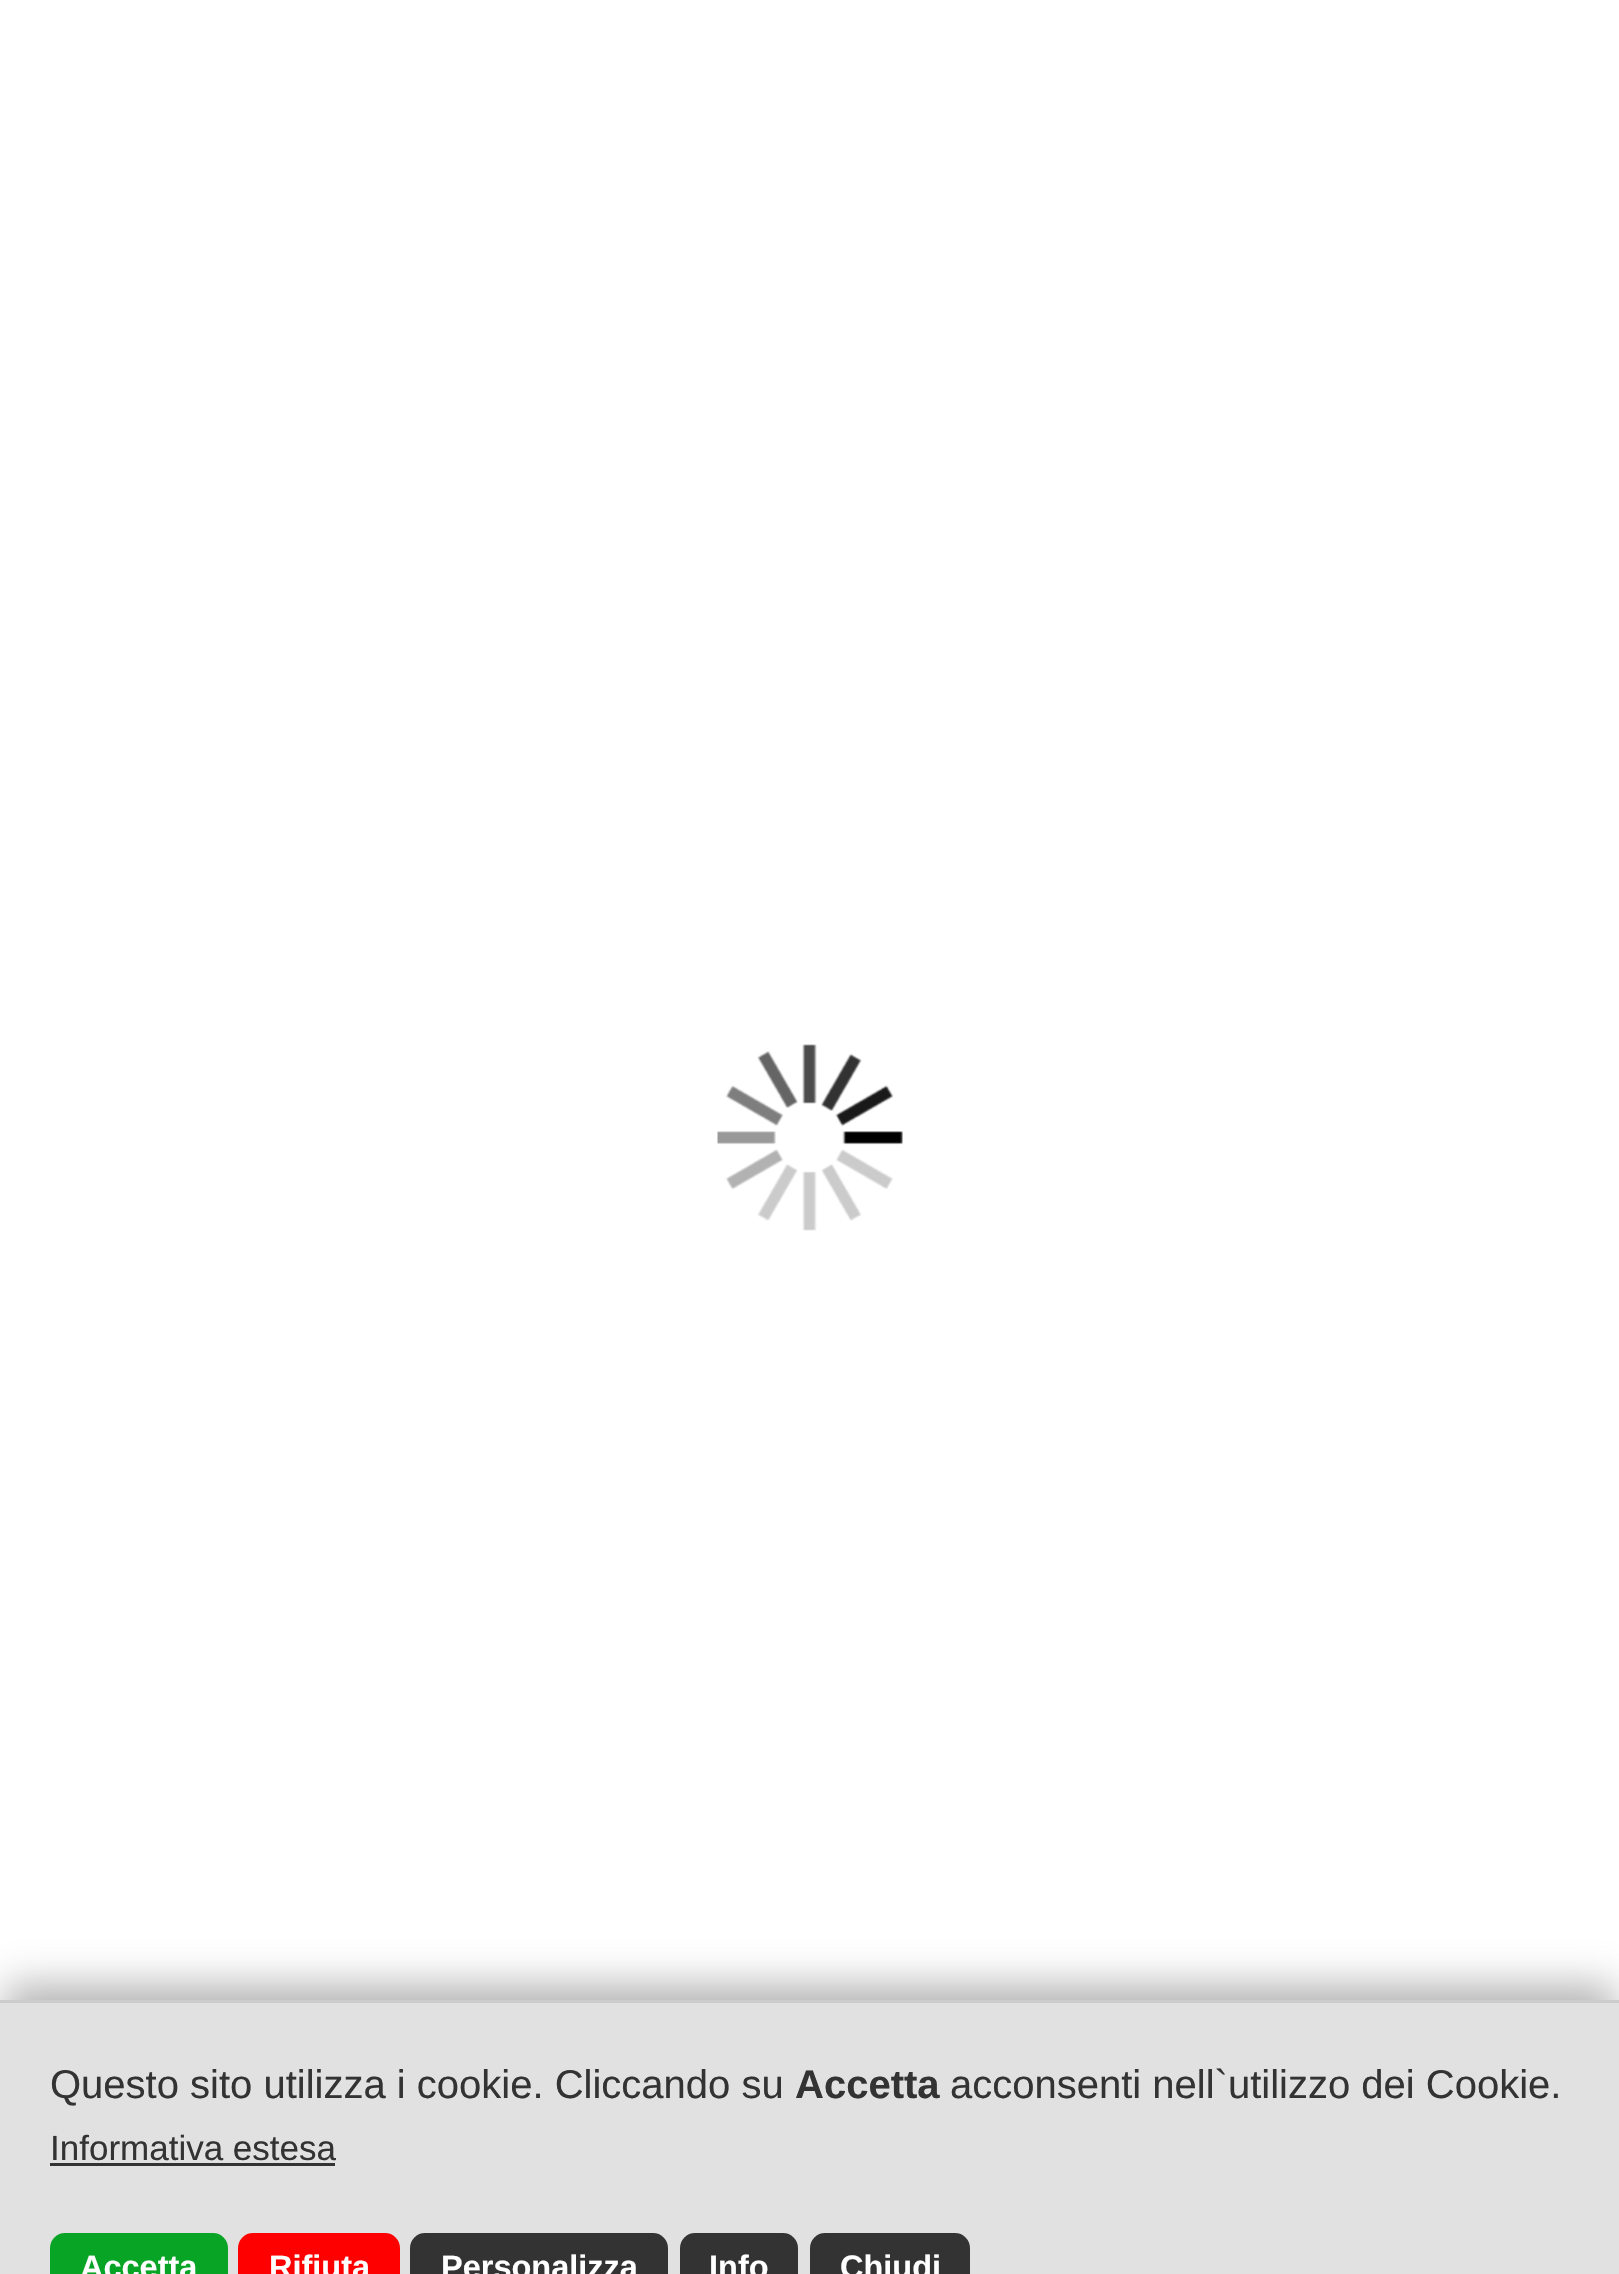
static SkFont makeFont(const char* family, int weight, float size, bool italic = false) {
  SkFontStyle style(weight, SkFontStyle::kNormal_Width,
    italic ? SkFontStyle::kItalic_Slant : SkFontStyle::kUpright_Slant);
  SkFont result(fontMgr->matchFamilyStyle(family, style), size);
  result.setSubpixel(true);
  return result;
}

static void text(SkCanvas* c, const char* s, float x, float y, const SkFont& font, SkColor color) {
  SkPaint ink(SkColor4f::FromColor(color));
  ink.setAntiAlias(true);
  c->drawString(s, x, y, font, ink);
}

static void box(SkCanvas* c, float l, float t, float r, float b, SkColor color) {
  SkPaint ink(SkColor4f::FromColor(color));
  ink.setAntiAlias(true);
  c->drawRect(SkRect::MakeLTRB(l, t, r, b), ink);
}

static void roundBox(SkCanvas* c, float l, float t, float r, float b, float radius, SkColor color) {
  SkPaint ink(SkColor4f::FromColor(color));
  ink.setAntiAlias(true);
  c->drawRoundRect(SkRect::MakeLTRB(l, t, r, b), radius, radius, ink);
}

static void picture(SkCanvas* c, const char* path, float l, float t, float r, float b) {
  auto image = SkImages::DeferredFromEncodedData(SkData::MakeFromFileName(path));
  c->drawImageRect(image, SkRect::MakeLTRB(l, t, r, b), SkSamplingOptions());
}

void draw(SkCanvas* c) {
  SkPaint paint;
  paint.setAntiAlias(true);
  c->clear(0xffffffff);
  picture(c, "img_01.png", 717, 1044, 903, 1231);
  paint.setColor(0x8c737373);
  paint.setMaskFilter(SkMaskFilter::MakeBlur(kNormal_SkBlurStyle, 19));
  c->drawRect(SkRect::MakeLTRB(5, 1985, 1615, 2250), paint);
  paint.setMaskFilter(nullptr);
  box(c, 0, 2003, 1619, 2274, 0xffe1e1e1);
  box(c, 0, 2000, 1619, 2003, 0xffcccccc);
  SkFont face1 = makeFont("Liberation Sans", 400, 40);
  text(c, "Questo sito utilizza i cookie. Cliccando su", 50, 2098, face1, 0xff333333);
  SkFont face2 = makeFont("Liberation Sans", 700, 40);
  text(c, "Accetta", 795, 2098, face2, 0xff333333);
  text(c, "acconsenti nell`utilizzo dei Cookie.", 950, 2098, face1, 0xff333333);
  SkFont face3 = makeFont("Liberation Sans", 400, 35);
  text(c, "Informativa estesa", 50, 2160, face3, 0xff333333);
  box(c, 50, 2163, 335, 2166, 0xff333333);
  roundBox(c, 50, 2233, 228, 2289, 15, 0xff07a425);
  SkFont face4 = makeFont("Liberation Sans", 700, 32.5f);
  text(c, "Accetta", 80, 2278, face4, 0xffffffff);
  roundBox(c, 238, 2233, 400, 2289, 15, 0xffff0000);
  text(c, "Rifiuta", 269, 2278, face4, 0xffffffff);
  roundBox(c, 410, 2233, 668, 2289, 15, 0xff333333);
  text(c, "Personalizza", 441, 2278, face4, 0xffffffff);
  roundBox(c, 680, 2233, 798, 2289, 15, 0xff333333);
  text(c, "Info", 709, 2278, face4, 0xffffffff);
  roundBox(c, 810, 2233, 970, 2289, 15, 0xff333333);
  text(c, "Chiudi", 840, 2278, face4, 0xffffffff);
}
